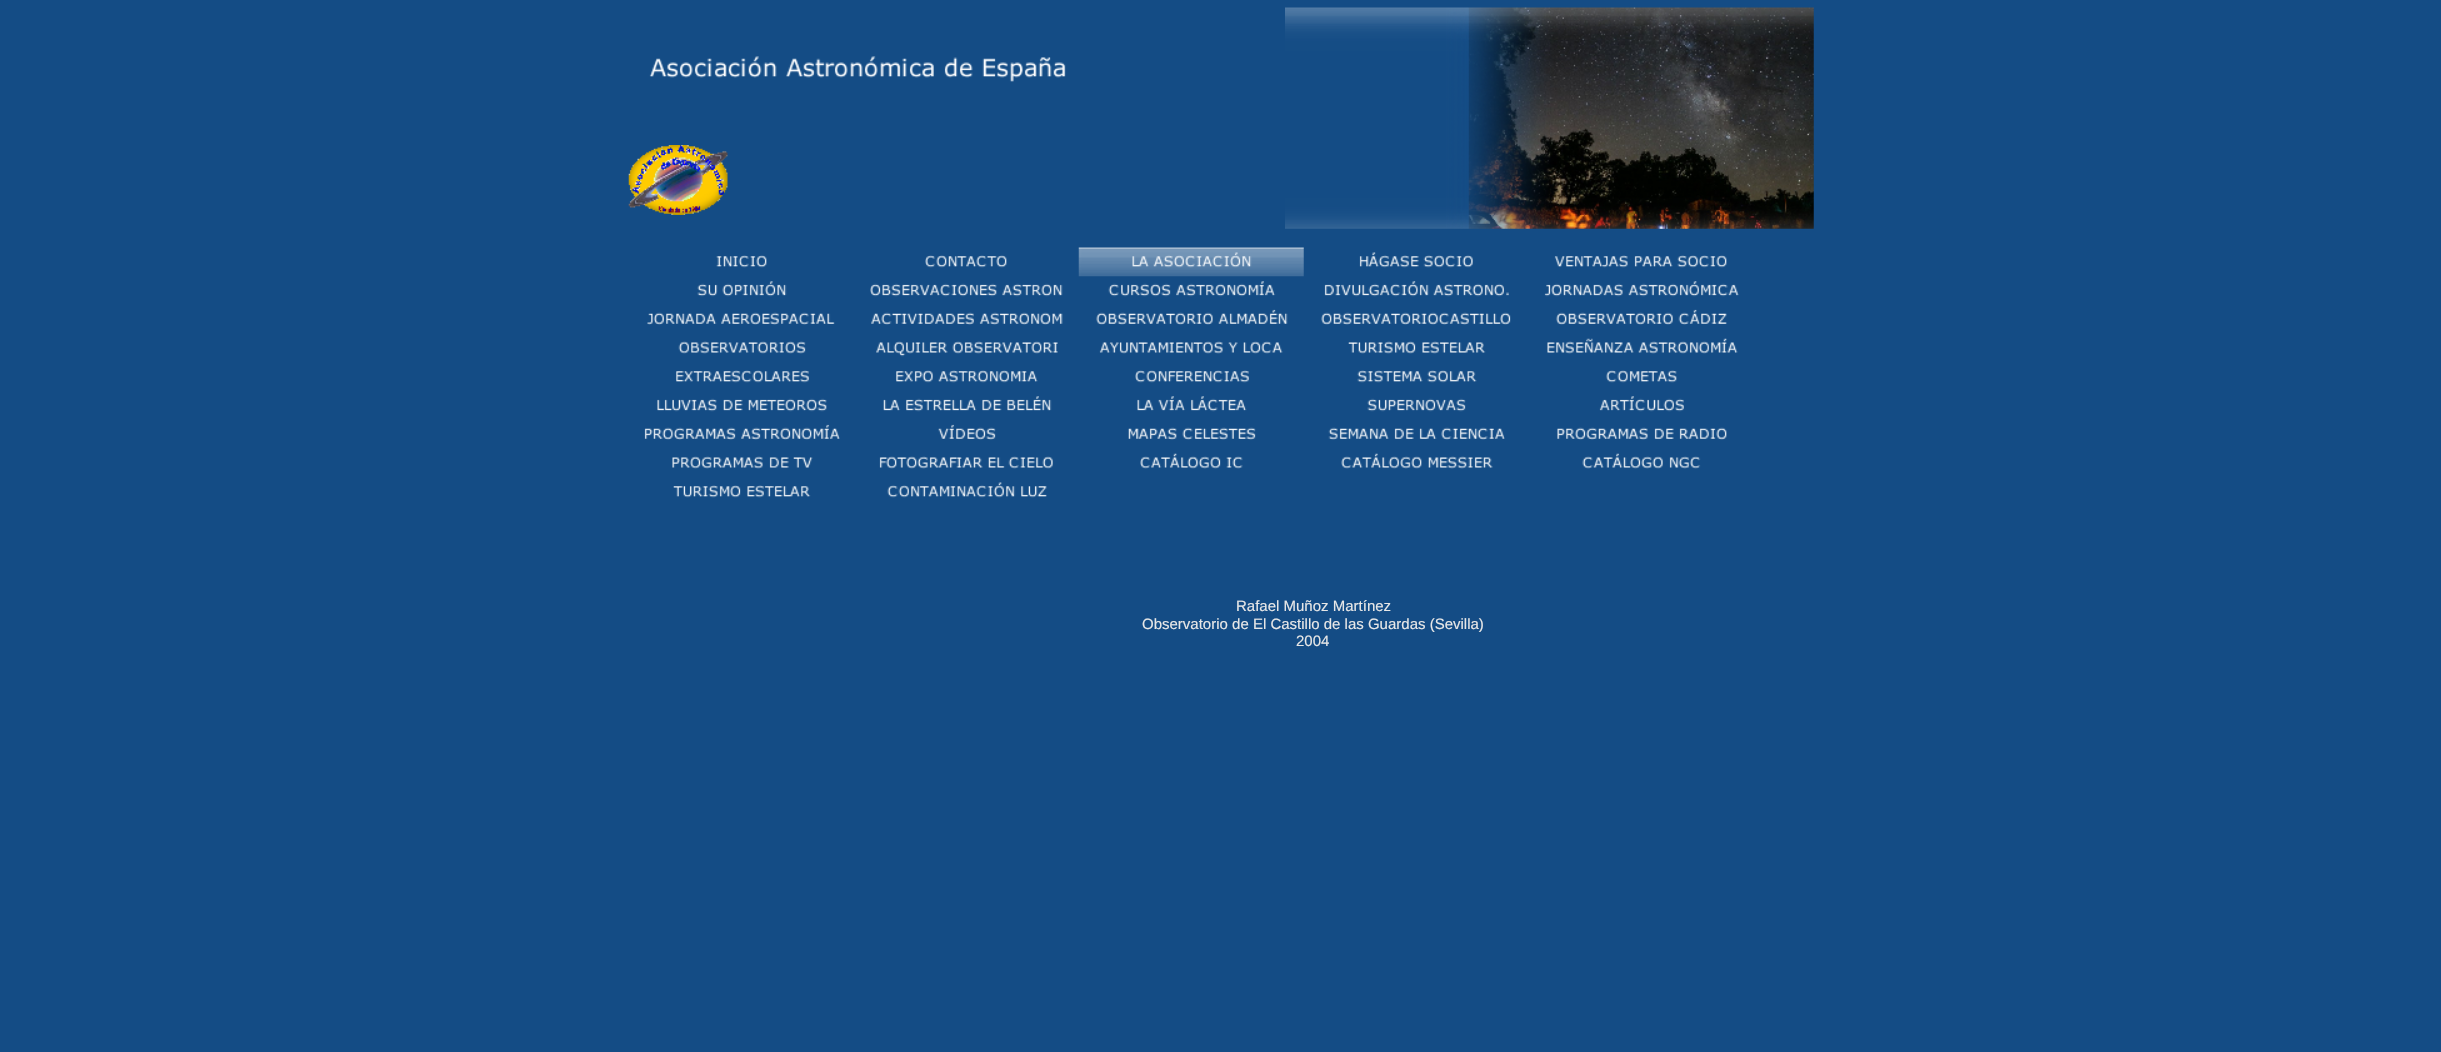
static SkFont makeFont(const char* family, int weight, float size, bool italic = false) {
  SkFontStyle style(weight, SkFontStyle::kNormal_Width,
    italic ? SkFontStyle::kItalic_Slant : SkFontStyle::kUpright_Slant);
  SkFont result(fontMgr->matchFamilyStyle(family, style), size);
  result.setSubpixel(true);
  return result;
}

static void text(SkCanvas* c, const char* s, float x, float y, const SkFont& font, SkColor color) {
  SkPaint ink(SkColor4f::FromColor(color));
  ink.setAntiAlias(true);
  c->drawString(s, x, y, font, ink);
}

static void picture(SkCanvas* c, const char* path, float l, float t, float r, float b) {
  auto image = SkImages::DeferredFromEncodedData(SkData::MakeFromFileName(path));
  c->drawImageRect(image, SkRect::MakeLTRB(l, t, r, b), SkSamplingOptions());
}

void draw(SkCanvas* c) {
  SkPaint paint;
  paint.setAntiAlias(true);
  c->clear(0xff144c85);
  picture(c, "img_01.png", 649, 56, 1066, 82);
  picture(c, "img_02.png", 1285, 7, 1814, 229);
  picture(c, "img_03.png", 628, 145, 728, 215);
  picture(c, "img_04.png", 716, 255, 767, 268);
  picture(c, "img_05.png", 925, 255, 1007, 268);
  picture(c, "img_06.png", 1078, 247, 1304, 277);
  picture(c, "img_07.png", 1359, 252, 1473, 268);
  picture(c, "img_08.png", 1554, 255, 1727, 268);
  picture(c, "img_09.png", 697, 281, 787, 297);
  picture(c, "img_10.png", 870, 283, 1063, 297);
  picture(c, "img_11.png", 1108, 281, 1276, 297);
  picture(c, "img_12.png", 1324, 281, 1509, 297);
  picture(c, "img_13.png", 1544, 281, 1739, 297);
  picture(c, "img_14.png", 647, 312, 835, 325);
  picture(c, "img_15.png", 871, 312, 1063, 325);
  picture(c, "img_16.png", 1096, 309, 1288, 325);
  picture(c, "img_17.png", 1321, 312, 1511, 325);
  picture(c, "img_18.png", 1556, 309, 1727, 325);
  picture(c, "img_19.png", 678, 341, 806, 354);
  picture(c, "img_20.png", 876, 341, 1058, 357);
  picture(c, "img_21.png", 1099, 341, 1283, 354);
  picture(c, "img_22.png", 1348, 341, 1486, 354);
  picture(c, "img_23.png", 1547, 338, 1738, 354);
  picture(c, "img_24.png", 676, 370, 809, 383);
  picture(c, "img_25.png", 896, 370, 1038, 383);
  picture(c, "img_26.png", 1135, 370, 1249, 383);
  picture(c, "img_27.png", 1357, 370, 1477, 383);
  picture(c, "img_28.png", 1606, 370, 1677, 383);
  picture(c, "img_29.png", 657, 398, 827, 412);
  picture(c, "img_30.png", 883, 396, 1052, 412);
  picture(c, "img_31.png", 1137, 396, 1247, 412);
  picture(c, "img_32.png", 1367, 398, 1466, 412);
  picture(c, "img_33.png", 1599, 396, 1684, 412);
  picture(c, "img_34.png", 644, 424, 840, 440);
  picture(c, "img_35.png", 938, 424, 996, 440);
  picture(c, "img_36.png", 1128, 427, 1256, 440);
  picture(c, "img_37.png", 1328, 427, 1505, 440);
  picture(c, "img_38.png", 1557, 427, 1727, 440);
  picture(c, "img_39.png", 672, 456, 813, 469);
  picture(c, "img_40.png", 879, 456, 1053, 469);
  picture(c, "img_41.png", 1140, 453, 1243, 469);
  picture(c, "img_42.png", 1341, 453, 1493, 469);
  picture(c, "img_43.png", 1582, 453, 1701, 469);
  picture(c, "img_44.png", 673, 485, 811, 498);
  picture(c, "img_45.png", 887, 482, 1047, 498);
  SkFont face1 = makeFont("Liberation Sans", 400, 15);
  text(c, "Rafael Muñoz Martínez", 1236, 611, face1, 0xffe7e7e7);
  text(c, "Observatorio de El Castillo de las Guardas (Sevilla)", 1142, 629, face1, 0xffe7e7e7);
  text(c, "2004", 1296, 646, face1, 0xffe7e7e7);
}
